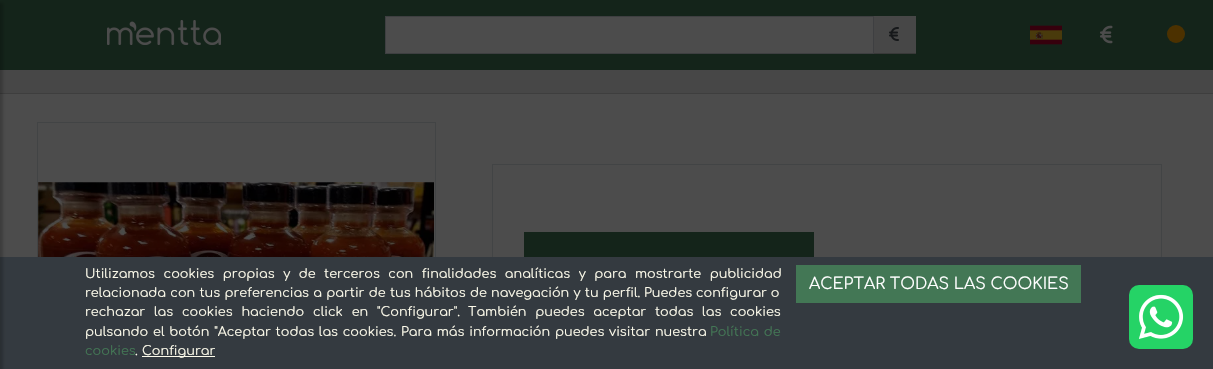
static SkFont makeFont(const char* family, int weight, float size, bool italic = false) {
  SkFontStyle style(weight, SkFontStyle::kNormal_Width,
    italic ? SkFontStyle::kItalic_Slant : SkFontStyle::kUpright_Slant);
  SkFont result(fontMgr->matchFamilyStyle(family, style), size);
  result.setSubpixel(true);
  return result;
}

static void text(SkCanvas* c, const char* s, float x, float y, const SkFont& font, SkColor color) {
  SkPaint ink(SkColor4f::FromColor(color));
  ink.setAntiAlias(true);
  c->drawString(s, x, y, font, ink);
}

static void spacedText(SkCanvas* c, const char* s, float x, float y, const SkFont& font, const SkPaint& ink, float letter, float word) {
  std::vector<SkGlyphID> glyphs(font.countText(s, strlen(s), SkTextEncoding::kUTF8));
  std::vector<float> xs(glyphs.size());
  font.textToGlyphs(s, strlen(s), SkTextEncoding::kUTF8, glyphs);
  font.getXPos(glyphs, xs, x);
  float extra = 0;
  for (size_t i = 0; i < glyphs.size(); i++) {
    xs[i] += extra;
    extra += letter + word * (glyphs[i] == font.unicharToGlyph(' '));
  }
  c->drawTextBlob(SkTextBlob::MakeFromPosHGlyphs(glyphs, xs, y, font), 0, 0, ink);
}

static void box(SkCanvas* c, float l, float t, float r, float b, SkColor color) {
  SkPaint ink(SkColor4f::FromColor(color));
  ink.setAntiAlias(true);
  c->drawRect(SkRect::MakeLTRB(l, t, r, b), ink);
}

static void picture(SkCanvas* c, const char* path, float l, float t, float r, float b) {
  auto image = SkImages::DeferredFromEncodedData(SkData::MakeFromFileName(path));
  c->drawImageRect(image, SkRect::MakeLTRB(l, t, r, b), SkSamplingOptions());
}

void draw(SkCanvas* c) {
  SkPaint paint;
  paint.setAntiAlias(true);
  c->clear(0xffffffff);
  box(c, 0, 0, 1213, 70, 0xff437755);
  picture(c, "img_01.png", 107, 20, 221, 45);
  box(c, 873, 53, 916, 54, 0xffbebebe);
  paint.setColor(0xffffffff);
  c->drawRect(SkRect::MakeLTRB(385.5f, 16.5f, 873.5f, 53.5f), paint);
  paint.setStyle(SkPaint::kStroke_Style);
  paint.setStrokeWidth(1);
  paint.setColor(0xffced4da);
  c->drawRect(SkRect::MakeLTRB(385.5f, 16.5f, 873.5f, 53.5f), paint);
  box(c, 874, 16, 916, 53, 0xffeeeeee);
  picture(c, "img_02.png", 889, 27, 899, 41);
  picture(c, "img_03.png", 1030, 25, 1062, 45);
  picture(c, "img_04.png", 1100, 25, 1113, 44);
  paint.setStyle(SkPaint::kFill_Style);
  paint.setColor(0xffffa500);
  c->drawCircle(1176, 34, 9, paint);
  box(c, 0, 70, 1213, 93, 0xffeeeeee);
  box(c, 0, 93, 1213, 94, 0xffd0d0d0);
  paint.setStyle(SkPaint::kStroke_Style);
  paint.setColor(0xffdee2e6);
  c->drawRect(SkRect::MakeLTRB(37.5f, 122.5f, 435.5f, 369.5f), paint);
  picture(c, "img_05.png", 38, 182, 434, 257);
  c->drawRect(SkRect::MakeLTRB(492.5f, 164.5f, 1161.5f, 293.5f), paint);
  box(c, 524, 232, 814, 257, 0xff437755);
  box(c, 0, 0, 1213, 257, 0xb3000000);
  box(c, 0, 257, 1213, 369, 0xff343a40);
  paint.setStyle(SkPaint::kFill_Style);
  paint.setColor(0x33000000);
  paint.setMaskFilter(SkMaskFilter::MakeBlur(kNormal_SkBlurStyle, 1.5f));
  c->drawRect(SkRect::MakeLTRB(-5, 3, 3, 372), paint);
  paint.setMaskFilter(nullptr);
  SkFont face1 = makeFont("Comfortaa", 400, 12.8f);
  paint.setColor(0xfffdfbeb);
  spacedText(c, "Utilizamos cookies propias y de terceros con finalidades analíticas y para mostrarte publicidad", 85, 278, face1, paint, 0, 4.75f);
  spacedText(c, "relacionada con tus preferencias a partir de tus hábitos de navegación y tu perfil.", 85, 297, face1, paint, 0, 0.5f);
  text(c, "Puedes configurar o", 644, 297, face1, 0xfffdfbeb);
  spacedText(c, "rechazar las cookies haciendo click en \"Configurar\".", 85, 316, face1, paint, 0, 5);
  spacedText(c, "También puedes aceptar todas las cookies", 468, 316, face1, paint, 0, 5);
  spacedText(c, "pulsando el botón \"Aceptar todas las cookies. Para más información puedes visitar nuestra", 85, 336, face1, paint, 0, 1);
  paint.setColor(0xff437755);
  spacedText(c, "Política de", 710, 336, face1, paint, 0, 1);
  text(c, "cookies", 85, 355, face1, 0xff437755);
  text(c, ".", 135, 355, face1, 0xfffdfbeb);
  box(c, 142, 356, 215, 357, 0xfffdfbeb);
  text(c, "Configurar", 142, 355, face1, 0xfffdfbeb);
  box(c, 796, 265, 1081, 303, 0xff437755);
  SkFont face2 = makeFont("Comfortaa", 400, 16);
  text(c, "ACEPTAR TODAS LAS COOKIES", 809, 289, face2, 0xffffffff);
  picture(c, "img_06.png", 1129, 285, 1193, 349);
}
